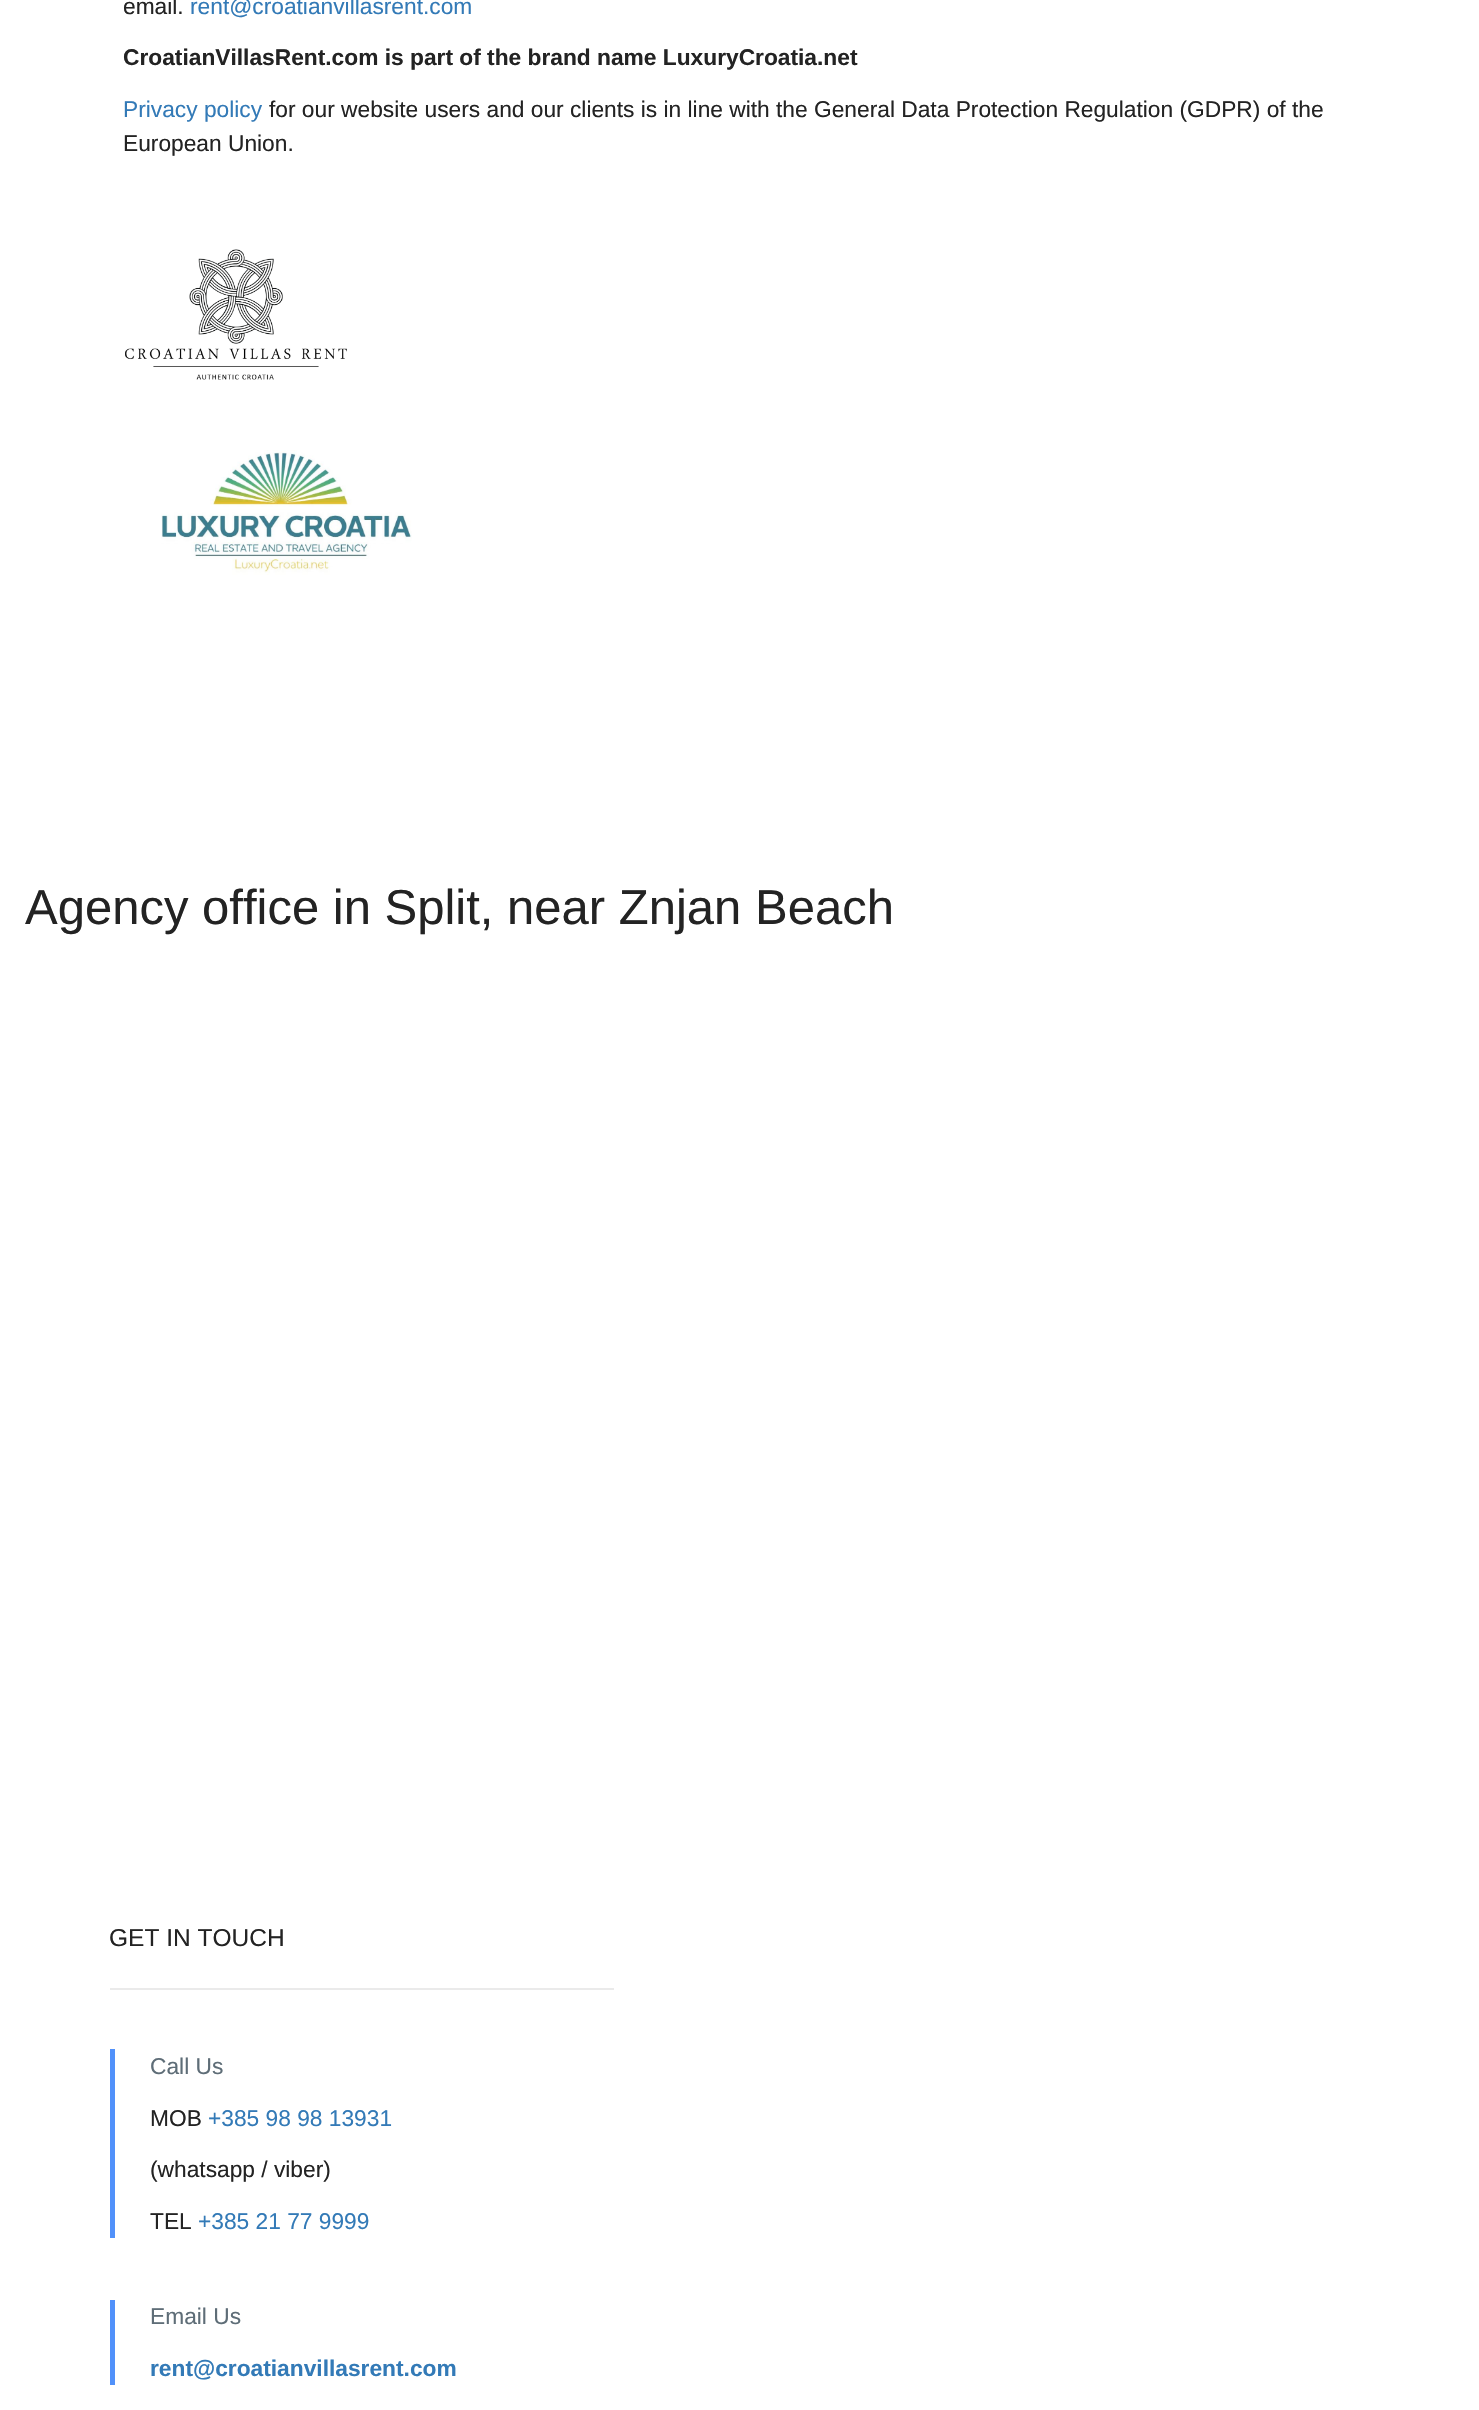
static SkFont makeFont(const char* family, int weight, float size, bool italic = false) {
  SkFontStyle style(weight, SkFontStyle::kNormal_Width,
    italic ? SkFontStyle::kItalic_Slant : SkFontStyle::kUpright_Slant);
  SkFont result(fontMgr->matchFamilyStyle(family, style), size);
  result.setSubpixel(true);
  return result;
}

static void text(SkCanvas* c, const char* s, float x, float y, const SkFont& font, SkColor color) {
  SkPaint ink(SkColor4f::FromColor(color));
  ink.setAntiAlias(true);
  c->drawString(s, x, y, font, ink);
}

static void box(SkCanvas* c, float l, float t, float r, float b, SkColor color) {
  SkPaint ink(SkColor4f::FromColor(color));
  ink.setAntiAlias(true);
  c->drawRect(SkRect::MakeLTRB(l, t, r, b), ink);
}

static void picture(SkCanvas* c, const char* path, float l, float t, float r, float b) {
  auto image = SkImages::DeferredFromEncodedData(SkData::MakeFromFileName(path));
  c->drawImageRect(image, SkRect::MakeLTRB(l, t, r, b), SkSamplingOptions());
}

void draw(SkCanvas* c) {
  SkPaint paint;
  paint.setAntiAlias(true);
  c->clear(0xffffffff);
  SkFont face1 = makeFont("Liberation Sans", 400, 22.75f);
  text(c, "email.", 123, 14, face1, 0xff232323);
  text(c, "rent@croatianvillasrent.com", 190, 14, face1, 0xff337ab7);
  SkFont face2 = makeFont("Liberation Sans", 700, 22.75f);
  text(c, "CroatianVillasRent.com is part of the brand name LuxuryCroatia.net", 123, 65, face2, 0xff232323);
  text(c, "Privacy policy", 123, 117, face1, 0xff337ab7);
  text(c, "for our website users and our clients is in line with the General Data Protection Regulation (GDPR) of the", 269, 117, face1, 0xff232323);
  text(c, "European Union.", 123, 151, face1, 0xff232323);
  picture(c, "img_01.png", 125, 249, 347, 380);
  picture(c, "img_02.png", 161, 450, 412, 575);
  SkFont face3 = makeFont("Liberation Sans", 400, 49);
  text(c, "Agency office in Split, near Znjan Beach", 25, 924, face3, 0xff232323);
  SkFont face4 = makeFont("Liberation Sans", 400, 24.5f);
  text(c, "GET IN TOUCH", 109, 1946, face4, 0xff232323);
  box(c, 110, 1988, 614, 1990, 0xffeaeaea);
  box(c, 110, 2049, 115, 2238, 0xff5191fa);
  text(c, "Call Us", 150, 2074, face1, 0xff5e6d77);
  text(c, "MOB", 150, 2126, face1, 0xff232323);
  text(c, "+385 98 98 13931", 208, 2126, face1, 0xff337ab7);
  text(c, "(whatsapp / viber)", 150, 2177, face1, 0xff232323);
  text(c, "TEL", 150, 2229, face1, 0xff232323);
  text(c, "+385 21 77 9999", 198, 2229, face1, 0xff337ab7);
  box(c, 110, 2300, 115, 2385, 0xff5191fa);
  text(c, "Email Us", 150, 2324, face1, 0xff5e6d77);
  text(c, "rent@croatianvillasrent.com", 150, 2376, face2, 0xff337ab7);
}
